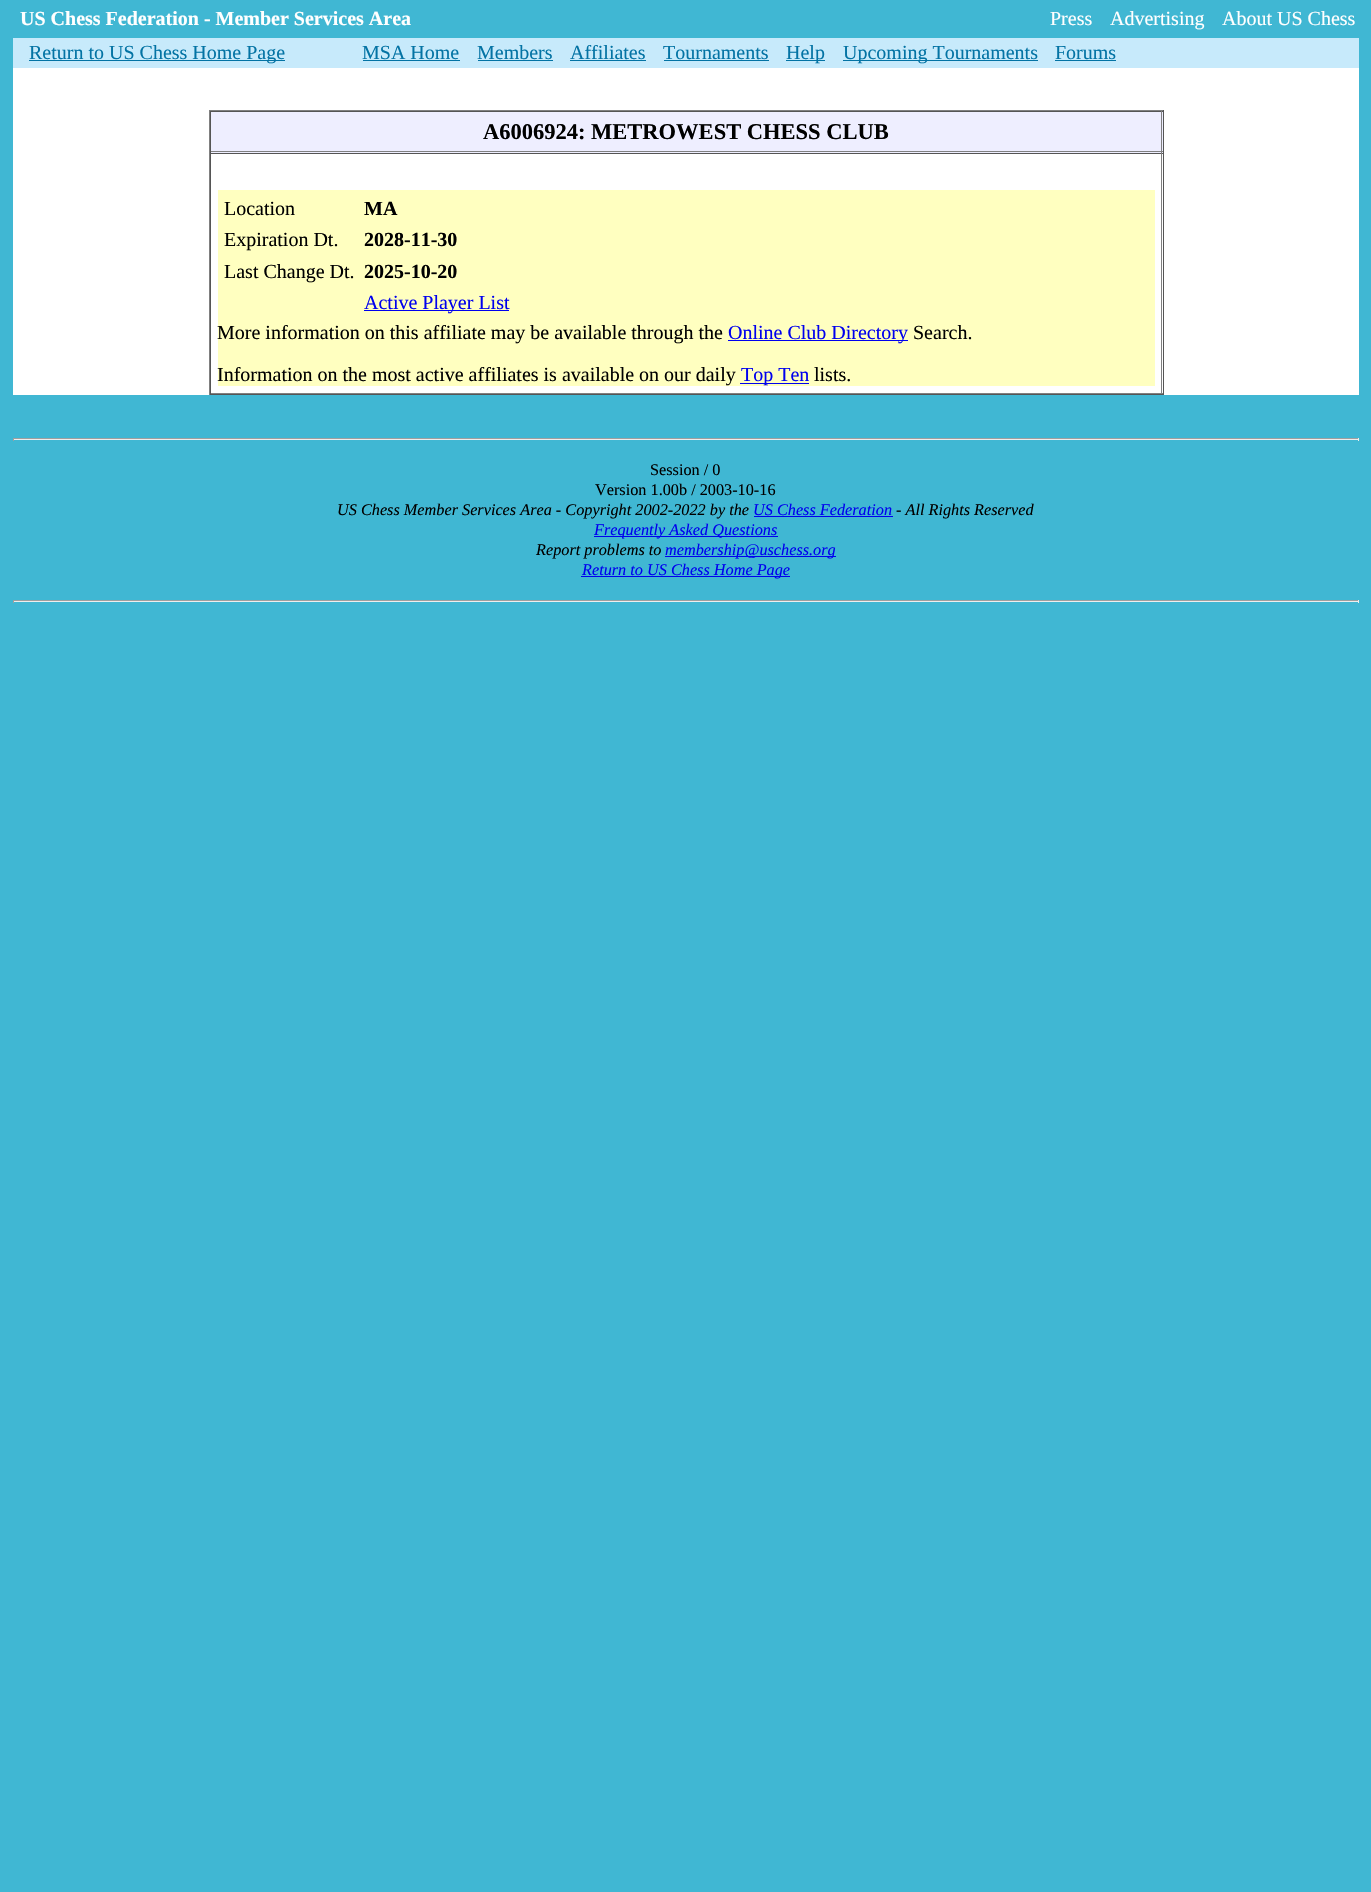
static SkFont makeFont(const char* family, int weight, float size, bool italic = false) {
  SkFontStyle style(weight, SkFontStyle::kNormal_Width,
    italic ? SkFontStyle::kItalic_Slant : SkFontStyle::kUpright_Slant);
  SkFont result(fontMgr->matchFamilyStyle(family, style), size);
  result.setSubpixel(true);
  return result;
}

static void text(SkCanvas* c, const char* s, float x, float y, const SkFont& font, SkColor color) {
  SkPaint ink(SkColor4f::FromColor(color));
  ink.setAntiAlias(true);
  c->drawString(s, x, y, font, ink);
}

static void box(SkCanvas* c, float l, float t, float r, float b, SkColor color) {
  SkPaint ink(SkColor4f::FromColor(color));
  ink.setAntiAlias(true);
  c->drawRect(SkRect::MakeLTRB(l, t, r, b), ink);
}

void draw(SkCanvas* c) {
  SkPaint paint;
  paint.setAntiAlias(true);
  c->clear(0xff40b7d3);
  SkFont face1 = makeFont("Liberation Serif", 700, 20);
  text(c, "US Chess Federation - Member Services Area", 20, 25, face1, 0xffffffff);
  SkFont face2 = makeFont("Liberation Serif", 400, 20);
  text(c, "Press", 1050, 25, face2, 0xffffffff);
  text(c, "Advertising", 1110, 25, face2, 0xffffffff);
  text(c, "About US Chess", 1222, 25, face2, 0xffffffff);
  box(c, 13, 38, 1359, 68, 0xffc7eafb);
  box(c, 29, 60, 285, 61, 0xff0373a4);
  text(c, "Return to US Chess Home Page", 29, 59, face2, 0xff0373a4);
  text(c, "MSA Home", 362, 59, face2, 0xff0373a4);
  box(c, 363, 60, 460, 61, 0xff0373a4);
  text(c, "Members", 477, 59, face2, 0xff0373a4);
  box(c, 478, 60, 553, 61, 0xff0373a4);
  text(c, "Affiliates", 570, 59, face2, 0xff0373a4);
  box(c, 570, 60, 646, 61, 0xff0373a4);
  text(c, "Tournaments", 663, 59, face2, 0xff0373a4);
  box(c, 664, 60, 769, 61, 0xff0373a4);
  box(c, 786, 60, 825, 61, 0xff0373a4);
  text(c, "Help", 786, 59, face2, 0xff0373a4);
  box(c, 843, 60, 1038, 61, 0xff0373a4);
  text(c, "Upcoming Tournaments", 843, 59, face2, 0xff0373a4);
  text(c, "Forums", 1055, 59, face2, 0xff0373a4);
  box(c, 1055, 60, 1116, 61, 0xff0373a4);
  box(c, 13, 68, 1359, 395, 0xffffffff);
  box(c, 209, 110, 1164, 111, 0xff808080);
  box(c, 1163, 110, 1164, 395, 0xff555555);
  box(c, 209, 394, 1164, 395, 0xff555555);
  box(c, 209, 110, 210, 395, 0xff808080);
  box(c, 211, 112, 1163, 153, 0xffeeeeff);
  box(c, 210, 111, 1163, 112, 0xff555555);
  box(c, 1161, 111, 1162, 153, 0xff808080);
  box(c, 210, 151, 1163, 152, 0xff808080);
  box(c, 210, 111, 211, 153, 0xff555555);
  SkFont face3 = makeFont("Liberation Serif", 700, 22.5f);
  text(c, "A6006924: METROWEST CHESS CLUB", 483, 139, face3, 0xff000000);
  box(c, 210, 153, 1163, 154, 0xff555555);
  box(c, 1161, 153, 1162, 394, 0xff808080);
  box(c, 210, 393, 1163, 394, 0xff808080);
  box(c, 210, 153, 211, 394, 0xff555555);
  box(c, 218, 190, 1155, 386, 0xffffffc0);
  text(c, "Location", 224, 215, face2, 0xff000000);
  text(c, "MA", 364, 215, face1, 0xff000000);
  text(c, "Expiration Dt.", 224, 246, face2, 0xff000000);
  text(c, "2028-11-30", 364, 246, face1, 0xff000000);
  text(c, "Last Change Dt.", 224, 278, face2, 0xff000000);
  text(c, "2025-10-20", 364, 278, face1, 0xff000000);
  box(c, 364, 310, 509, 311, 0xff0000ee);
  text(c, "Active Player List", 364, 309, face2, 0xff0000ee);
  text(c, "More information on this affiliate may be available through the", 217, 339, face2, 0xff000000);
  box(c, 728, 340, 908, 341, 0xff0000ee);
  text(c, "Online Club Directory", 728, 339, face2, 0xff0000ee);
  text(c, "Search.", 913, 339, face2, 0xff000000);
  text(c, "Information on the most active affiliates is available on our daily", 217, 381, face2, 0xff000000);
  box(c, 740, 383, 809, 384, 0xff0000ee);
  text(c, "Top Ten", 741, 381, face2, 0xff0000ee);
  text(c, "lists.", 814, 381, face2, 0xff000000);
  box(c, 13, 438, 1359, 439, 0xff9f9f9f);
  box(c, 1358, 438, 1359, 441, 0xffeeeeee);
  box(c, 13, 439, 1359, 440, 0xffeeeeee);
  box(c, 13, 438, 14, 441, 0xff9f9f9f);
  SkFont face4 = makeFont("Liberation Serif", 400, 16.25f);
  text(c, "Session / 0", 650, 475, face4, 0xff000000);
  text(c, "Version 1.00b / 2003-10-16", 595, 495, face4, 0xff000000);
  SkFont face5 = makeFont("Liberation Serif", 400, 16.25f, true);
  text(c, "US Chess Member Services Area - Copyright 2002-2022 by the", 337, 515, face5, 0xff000000);
  text(c, "US Chess Federation", 753, 515, face5, 0xff0000ee);
  box(c, 754, 516, 893, 517, 0xff0000ee);
  text(c, "- All Rights Reserved", 896, 515, face5, 0xff000000);
  box(c, 594, 536, 778, 537, 0xff0000ee);
  text(c, "Frequently Asked Questions", 594, 535, face5, 0xff0000ee);
  text(c, "Report problems to", 536, 555, face5, 0xff000000);
  box(c, 665, 556, 836, 557, 0xff0000ee);
  text(c, "membership@uschess.org", 665, 555, face5, 0xff0000ee);
  box(c, 581, 576, 790, 577, 0xff0000ee);
  text(c, "Return to US Chess Home Page", 582, 575, face5, 0xff0000ee);
  box(c, 13, 600, 1359, 601, 0xff9f9f9f);
  box(c, 1358, 600, 1359, 603, 0xffeeeeee);
  box(c, 13, 601, 1359, 602, 0xffeeeeee);
  box(c, 13, 600, 14, 603, 0xff9f9f9f);
}
